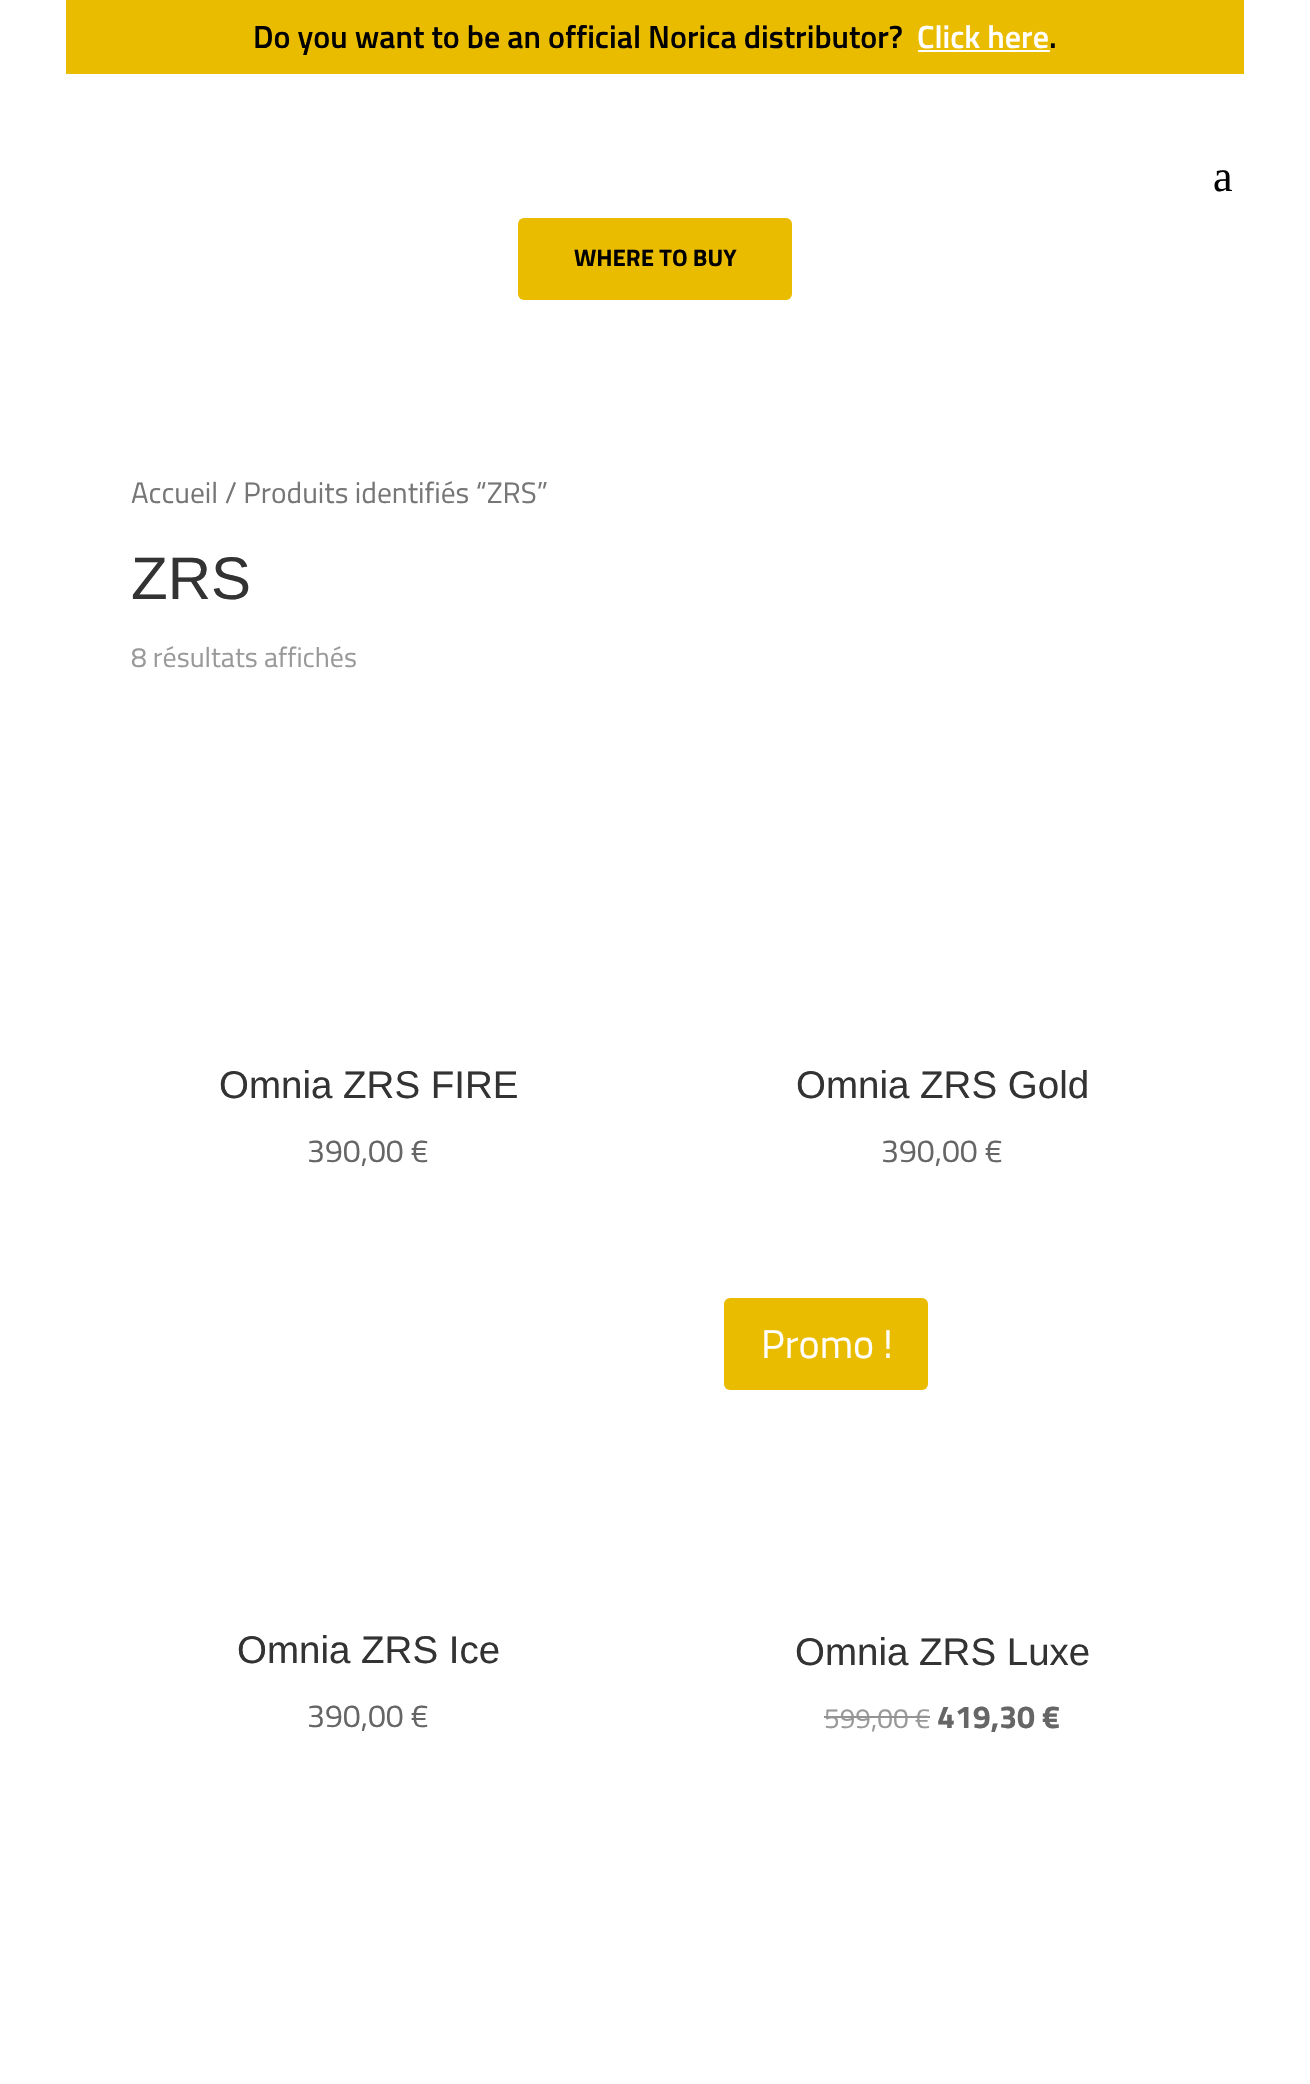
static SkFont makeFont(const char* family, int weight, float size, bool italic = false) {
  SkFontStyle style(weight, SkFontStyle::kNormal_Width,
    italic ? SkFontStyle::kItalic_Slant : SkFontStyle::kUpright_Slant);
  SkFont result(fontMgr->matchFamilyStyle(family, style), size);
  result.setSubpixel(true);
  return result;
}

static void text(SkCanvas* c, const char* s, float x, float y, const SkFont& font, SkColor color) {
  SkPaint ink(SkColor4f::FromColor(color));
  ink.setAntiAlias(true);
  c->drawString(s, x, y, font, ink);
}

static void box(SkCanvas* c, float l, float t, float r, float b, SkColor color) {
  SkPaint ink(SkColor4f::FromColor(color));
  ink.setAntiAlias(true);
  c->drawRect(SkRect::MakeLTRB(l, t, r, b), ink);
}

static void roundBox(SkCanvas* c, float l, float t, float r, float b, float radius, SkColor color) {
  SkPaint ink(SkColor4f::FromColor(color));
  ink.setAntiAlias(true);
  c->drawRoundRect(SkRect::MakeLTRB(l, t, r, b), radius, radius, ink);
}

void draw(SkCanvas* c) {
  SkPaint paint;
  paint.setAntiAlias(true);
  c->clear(0xffffffff);
  box(c, 66, 0, 1244, 74, 0xffeabc00);
  SkFont face1 = makeFont("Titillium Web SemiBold", 600, 32);
  text(c, "Do you want to be an official Norica distributor?", 253, 48, face1, 0xff000000);
  text(c, "Click here", 917, 48, face1, 0xffffffff);
  text(c, ".", 1049, 48, face1, 0xff000000);
  box(c, 918, 50, 1050, 52, 0xffffffff);
  SkFont face2 = makeFont("Liberation Serif", 400, 44);
  text(c, "a", 1213, 191, face2, 0xff000000);
  roundBox(c, 518, 218, 792, 300, 6, 0xffeabc00);
  SkFont face3 = makeFont("Titillium Web", 700, 24);
  text(c, "WHERE TO BUY", 574, 266, face3, 0xff000000);
  SkFont face4 = makeFont("Titillium Web", 400, 29.5f);
  text(c, "Accueil / Produits identifiés “ZRS”", 131, 503, face4, 0xff767676);
  SkFont face5 = makeFont("Liberation Sans", 400, 60);
  text(c, "ZRS", 131, 599, face5, 0xff333333);
  SkFont face6 = makeFont("Titillium Web", 400, 28);
  text(c, "8 résultats affichés", 131, 667, face6, 0xff999999);
  SkFont face7 = makeFont("Liberation Sans", 400, 38.5f);
  text(c, "Omnia ZRS FIRE", 219, 1098, face7, 0xff333333);
  SkFont face8 = makeFont("Titillium Web", 400, 32);
  text(c, "390,00 €", 307, 1162, face8, 0xff666666);
  text(c, "Omnia ZRS Gold", 796, 1098, face7, 0xff333333);
  text(c, "390,00 €", 881, 1162, face8, 0xff666666);
  text(c, "Omnia ZRS Ice", 237, 1663, face7, 0xff333333);
  text(c, "390,00 €", 307, 1727, face8, 0xff666666);
  roundBox(c, 724, 1298, 928, 1390, 6, 0xffeabc00);
  SkFont face9 = makeFont("Titillium Web", 400, 40);
  text(c, "Promo !", 761, 1358, face9, 0xffffffff);
  text(c, "Omnia ZRS Luxe", 795, 1665, face7, 0xff333333);
  text(c, "599,00 €", 824, 1728, face6, 0xff999999);
  box(c, 824, 1716, 930, 1718, 0xff949494);
  SkFont face10 = makeFont("Titillium Web", 700, 32);
  text(c, "419,30 €", 937, 1728, face10, 0xff666666);
}
